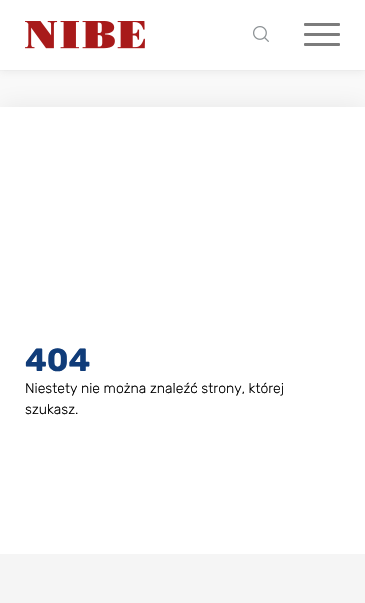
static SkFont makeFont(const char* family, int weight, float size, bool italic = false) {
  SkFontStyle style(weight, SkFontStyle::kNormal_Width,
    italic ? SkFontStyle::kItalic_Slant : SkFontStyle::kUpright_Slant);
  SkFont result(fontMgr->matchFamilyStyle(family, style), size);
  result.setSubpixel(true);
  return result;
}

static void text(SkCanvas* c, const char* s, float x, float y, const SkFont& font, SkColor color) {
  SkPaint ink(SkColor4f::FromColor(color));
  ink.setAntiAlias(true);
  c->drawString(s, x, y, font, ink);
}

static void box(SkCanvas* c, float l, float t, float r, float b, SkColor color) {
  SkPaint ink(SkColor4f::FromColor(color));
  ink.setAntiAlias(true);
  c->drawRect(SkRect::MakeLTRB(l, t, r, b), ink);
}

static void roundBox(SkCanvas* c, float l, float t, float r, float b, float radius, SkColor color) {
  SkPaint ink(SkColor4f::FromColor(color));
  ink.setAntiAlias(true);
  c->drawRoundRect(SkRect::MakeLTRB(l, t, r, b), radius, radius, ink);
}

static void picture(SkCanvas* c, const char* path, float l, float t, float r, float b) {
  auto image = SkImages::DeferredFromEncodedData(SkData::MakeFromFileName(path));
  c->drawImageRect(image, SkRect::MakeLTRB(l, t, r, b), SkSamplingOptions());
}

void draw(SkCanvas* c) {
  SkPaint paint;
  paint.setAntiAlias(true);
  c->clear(0xfffafafa);
  paint.setColor(0x14000000);
  paint.setMaskFilter(SkMaskFilter::MakeBlur(kNormal_SkBlurStyle, 12.5f));
  c->drawRect(SkRect::MakeLTRB(0, 107, 365, 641), paint);
  paint.setMaskFilter(nullptr);
  box(c, 0, 107, 365, 554, 0xffffffff);
  paint.setStyle(SkPaint::kStroke_Style);
  paint.setStrokeWidth(1);
  paint.setColor(0xfff4f4f4);
  c->drawRect(SkRect::MakeLTRB(-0.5f, -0.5f, 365.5f, 70.5f), paint);
  paint.setStyle(SkPaint::kFill_Style);
  paint.setColor(0x1f808080);
  paint.setMaskFilter(SkMaskFilter::MakeBlur(kNormal_SkBlurStyle, 4));
  c->drawRect(SkRect::MakeLTRB(0, 2, 365, 72), paint);
  paint.setMaskFilter(nullptr);
  box(c, 0, 0, 365, 70, 0xffffffff);
  picture(c, "img_01.png", 25, 21, 145, 49);
  picture(c, "img_02.png", 253, 26, 269, 42);
  roundBox(c, 304, 33, 340, 36, 1, 0xff7c7c7c);
  roundBox(c, 304, 23, 340, 26, 1, 0xff7c7c7c);
  roundBox(c, 304, 43, 340, 46, 1, 0xff7c7c7c);
  SkFont face1 = makeFont("Rubik", 700, 32);
  text(c, "404", 25, 371, face1, 0xff103c79);
  SkFont face2 = makeFont("Rubik", 300, 14);
  text(c, "Niestety nie można znaleźć strony, której", 25, 393, face2, 0xff000000);
  text(c, "szukasz.", 25, 414, face2, 0xff000000);
  box(c, 0, 554, 365, 603, 0xfff5f5f5);
}
